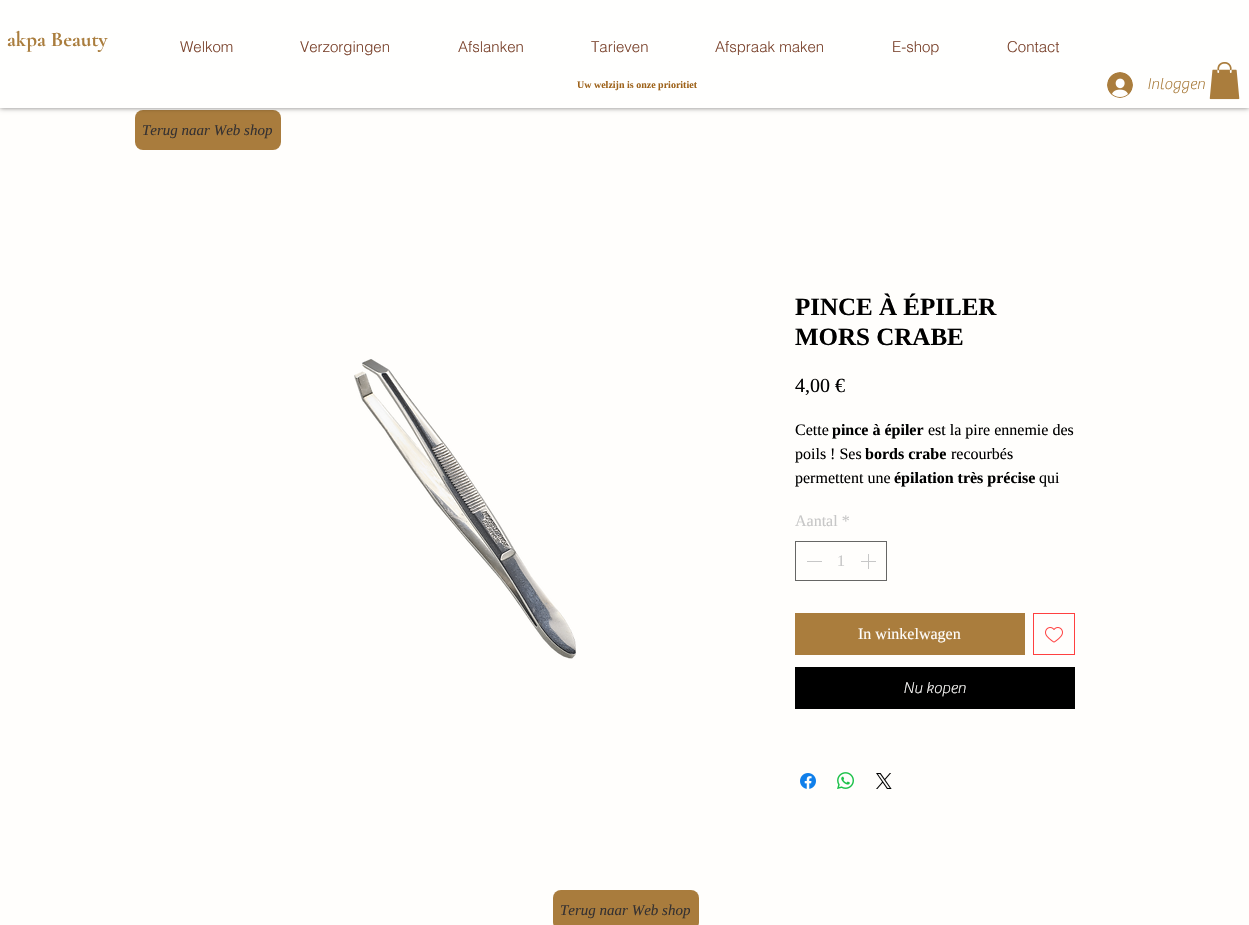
static SkFont makeFont(const char* family, int weight, float size, bool italic = false) {
  SkFontStyle style(weight, SkFontStyle::kNormal_Width,
    italic ? SkFontStyle::kItalic_Slant : SkFontStyle::kUpright_Slant);
  SkFont result(fontMgr->matchFamilyStyle(family, style), size);
  result.setSubpixel(true);
  return result;
}

static void text(SkCanvas* c, const char* s, float x, float y, const SkFont& font, SkColor color) {
  SkPaint ink(SkColor4f::FromColor(color));
  ink.setAntiAlias(true);
  c->drawString(s, x, y, font, ink);
}

static void box(SkCanvas* c, float l, float t, float r, float b, SkColor color) {
  SkPaint ink(SkColor4f::FromColor(color));
  ink.setAntiAlias(true);
  c->drawRect(SkRect::MakeLTRB(l, t, r, b), ink);
}

static void roundBox(SkCanvas* c, float l, float t, float r, float b, float radius, SkColor color) {
  SkPaint ink(SkColor4f::FromColor(color));
  ink.setAntiAlias(true);
  c->drawRoundRect(SkRect::MakeLTRB(l, t, r, b), radius, radius, ink);
}

static void picture(SkCanvas* c, const char* path, float l, float t, float r, float b) {
  auto image = SkImages::DeferredFromEncodedData(SkData::MakeFromFileName(path));
  c->drawImageRect(image, SkRect::MakeLTRB(l, t, r, b), SkSamplingOptions());
}

void draw(SkCanvas* c) {
  SkPaint paint;
  paint.setAntiAlias(true);
  c->clear(0xfffffefc);
  roundBox(c, 135, 110, 281, 150, 8, 0xffa97c3d);
  paint.setColor(0x80000000);
  paint.setMaskFilter(SkMaskFilter::MakeBlur(kNormal_SkBlurStyle, 2.5f));
  c->drawRect(SkRect::MakeLTRB(0, 0, 1249, 108), paint);
  paint.setMaskFilter(nullptr);
  box(c, 0, 0, 1249, 108, 0xfffffffe);
  SkFont face1 = makeFont("Cormorant Garamond", 700, 21);
  text(c, "akpa Beauty", 7, 46, face1, 0xffaa7d3d);
  SkFont face2 = makeFont("helvetica", 300, 15);
  text(c, "Welkom", 180, 52, face2, 0xff7c452f);
  text(c, "Verzorgingen", 300, 52, face2, 0xff7c452f);
  text(c, "Afslanken", 458, 52, face2, 0xff7c452f);
  text(c, "Tarieven", 591, 52, face2, 0xff7c452f);
  text(c, "Afspraak maken", 715, 52, face2, 0xff7c452f);
  text(c, "E-shop", 892, 52, face2, 0xff7c452f);
  text(c, "Contact", 1007, 52, face2, 0xff7c452f);
  SkFont face3 = makeFont("Liberation Serif", 700, 10);
  text(c, "Uw welzijn is onze prioritiet", 577, 88, face3, 0xff9e631b);
  picture(c, "img_01.png", 1107, 72, 1133, 98);
  SkFont face4 = makeFont("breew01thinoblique", 100, 16);
  text(c, "Inloggen", 1147, 89, face4, 0xffaa7d3d);
  picture(c, "img_02.png", 1209, 62, 1240, 100);
  SkFont face5 = makeFont("Liberation Serif", 400, 15, true);
  text(c, "Terug naar Web shop", 142, 135, face5, 0xff353131);
  picture(c, "img_03.png", 354, 359, 576, 659);
  SkFont face6 = makeFont("Liberation Serif", 700, 25);
  text(c, "PINCE À ÉPILER", 795, 315, face6, 0xff000000);
  text(c, "MORS CRABE", 795, 345, face6, 0xff000000);
  SkFont face7 = makeFont("Liberation Serif", 400, 20);
  text(c, "4,00 €", 795, 392, face7, 0xff000000);
  SkFont face8 = makeFont("Liberation Serif", 400, 16);
  text(c, "Cette", 795, 435, face8, 0xff000000);
  SkFont face9 = makeFont("Liberation Serif", 700, 16);
  text(c, "pince à épiler", 832, 435, face9, 0xff000000);
  text(c, "est la pire ennemie des", 928, 435, face8, 0xff000000);
  text(c, "poils ! Ses", 795, 459, face8, 0xff000000);
  text(c, "bords crabe", 865, 459, face9, 0xff000000);
  text(c, "recourbés", 951, 459, face8, 0xff000000);
  text(c, "permettent une", 795, 483, face8, 0xff000000);
  text(c, "épilation très précise", 894, 483, face9, 0xff000000);
  text(c, "qui", 1039, 483, face8, 0xff000000);
  text(c, "Aantal *", 795, 526, face8, 0xffc7c7c7);
  paint.setStyle(SkPaint::kStroke_Style);
  paint.setStrokeWidth(1);
  paint.setColor(0xff666665);
  c->drawRect(SkRect::MakeLTRB(795.5f, 541.5f, 886.5f, 580.5f), paint);
  box(c, 807, 561, 822, 562, 0xffc7c7c7);
  text(c, "1", 837, 566, face8, 0xffc7c7c7);
  picture(c, "img_04.png", 861, 554, 876, 569);
  box(c, 795, 613, 1025, 655, 0xffaa7d3d);
  text(c, "In winkelwagen", 858, 639, face8, 0xfffffefc);
  paint.setColor(0xffff4040);
  c->drawRect(SkRect::MakeLTRB(1033.5f, 613.5f, 1074.5f, 654.5f), paint);
  picture(c, "img_05.png", 1045, 627, 1063, 643);
  box(c, 795, 667, 1075, 709, 0xff000000);
  text(c, "Nu kopen", 903, 693, face4, 0xfffffefc);
  picture(c, "img_06.png", 800, 773, 816, 789);
  picture(c, "img_07.png", 837, 772, 854, 789);
  picture(c, "img_08.png", 876, 773, 892, 789);
  roundBox(c, 553, 890, 699, 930, 8, 0xffa97c3d);
  text(c, "Terug naar Web shop", 560, 915, face5, 0xff353131);
}
